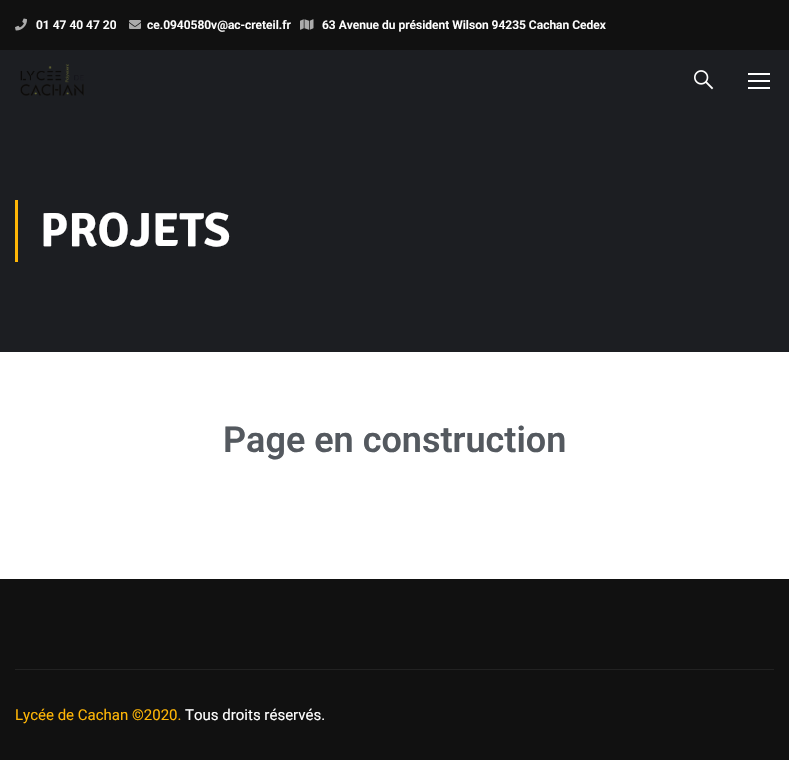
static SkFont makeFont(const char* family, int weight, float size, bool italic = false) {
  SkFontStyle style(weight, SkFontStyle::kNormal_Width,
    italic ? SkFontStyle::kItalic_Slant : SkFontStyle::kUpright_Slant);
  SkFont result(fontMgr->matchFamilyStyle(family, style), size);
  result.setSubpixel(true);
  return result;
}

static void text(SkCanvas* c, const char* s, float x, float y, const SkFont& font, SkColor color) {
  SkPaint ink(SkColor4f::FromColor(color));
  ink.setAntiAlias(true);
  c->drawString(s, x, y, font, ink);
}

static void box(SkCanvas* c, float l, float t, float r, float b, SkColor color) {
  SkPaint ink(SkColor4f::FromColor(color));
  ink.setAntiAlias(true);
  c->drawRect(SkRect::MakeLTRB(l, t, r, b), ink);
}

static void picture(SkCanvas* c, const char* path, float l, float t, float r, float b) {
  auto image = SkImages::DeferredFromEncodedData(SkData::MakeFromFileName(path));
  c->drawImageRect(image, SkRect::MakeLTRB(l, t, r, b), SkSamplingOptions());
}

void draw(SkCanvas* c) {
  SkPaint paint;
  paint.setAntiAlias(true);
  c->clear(0xffffffff);
  box(c, 0, 0, 789, 50, 0xff111111);
  picture(c, "img_01.png", 15, 18, 27, 31);
  SkFont face1 = makeFont("Roboto", 600, 12);
  text(c, "01 47 40 47 20", 36, 29, face1, 0xffffffff);
  picture(c, "img_02.png", 129, 20, 141, 29);
  text(c, "ce.0940580v@ac-creteil.fr", 147, 29, face1, 0xffffffff);
  picture(c, "img_03.png", 300, 19, 314, 30);
  text(c, "63 Avenue du président Wilson 94235 Cachan Cedex", 322, 29, face1, 0xffffffff);
  box(c, 0, 50, 789, 352, 0xff1c1e22);
  picture(c, "img_04.png", 20, 64, 84, 96);
  picture(c, "img_05.png", 694, 70, 714, 90);
  box(c, 748, 73, 770, 75, 0xffffffff);
  box(c, 748, 80, 770, 82, 0xffffffff);
  box(c, 748, 87, 770, 89, 0xffffffff);
  box(c, 15, 200, 18, 262, 0xffffb606);
  SkFont face2 = makeFont("Signika Negative", 700, 48);
  text(c, "PROJETS", 40, 246, face2, 0xffffffff);
  SkFont face3 = makeFont("Roboto", 600, 36);
  text(c, "Page en construction", 223, 452, face3, 0xff54595f);
  box(c, 0, 579, 789, 760, 0xff111111);
  box(c, 15, 669, 774, 670, 0xff222222);
  SkFont face4 = makeFont("Roboto", 400, 15);
  text(c, "Lycée de Cachan ©2020.", 15, 720, face4, 0xffffb606);
  text(c, "Tous droits réservés.", 185, 720, face4, 0xffffffff);
}
